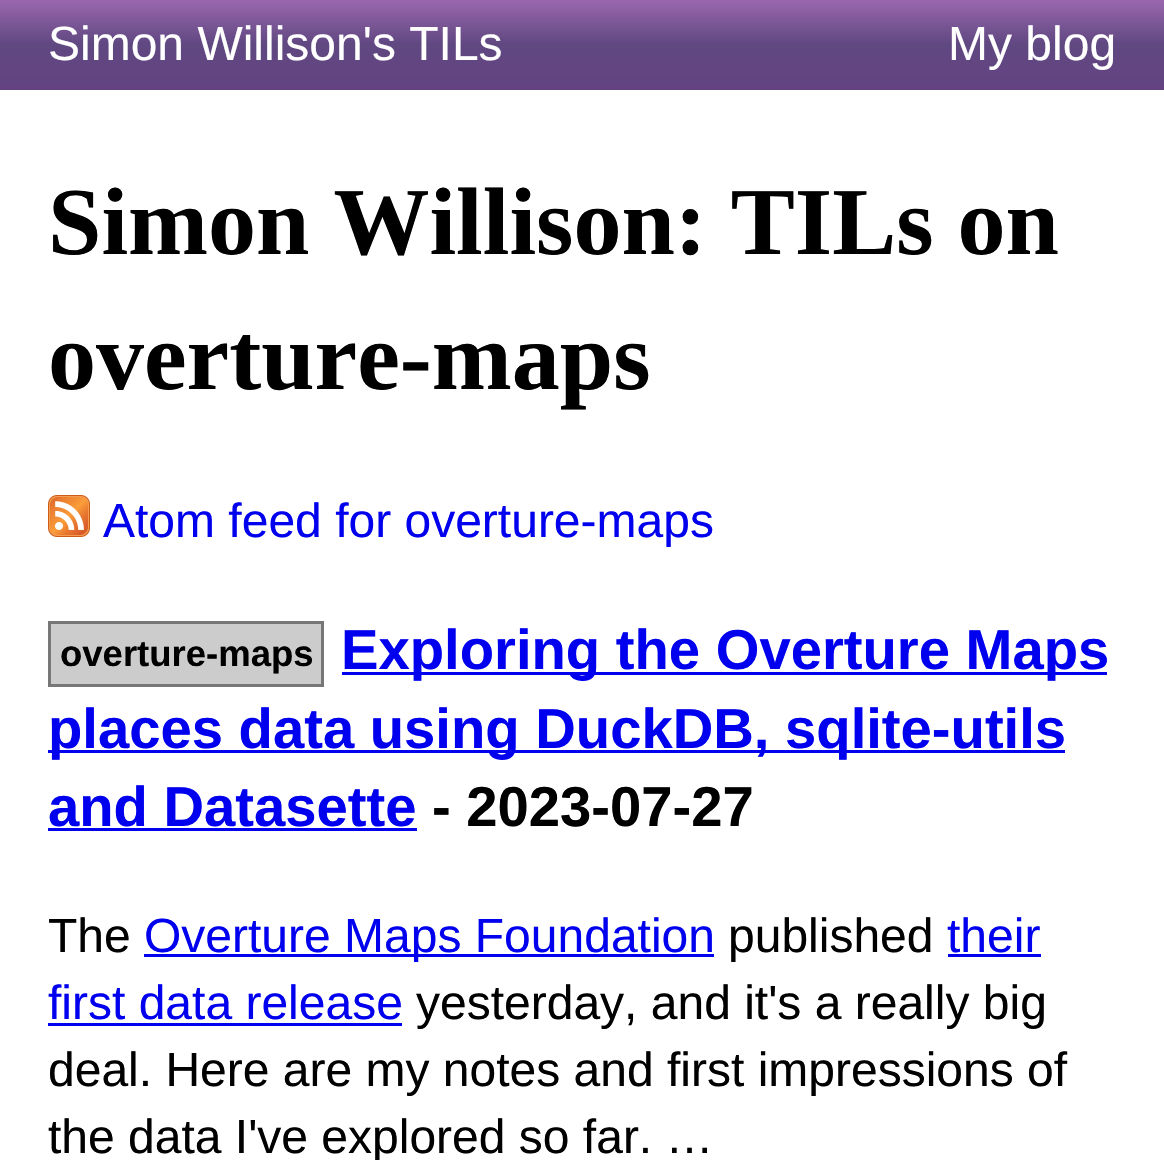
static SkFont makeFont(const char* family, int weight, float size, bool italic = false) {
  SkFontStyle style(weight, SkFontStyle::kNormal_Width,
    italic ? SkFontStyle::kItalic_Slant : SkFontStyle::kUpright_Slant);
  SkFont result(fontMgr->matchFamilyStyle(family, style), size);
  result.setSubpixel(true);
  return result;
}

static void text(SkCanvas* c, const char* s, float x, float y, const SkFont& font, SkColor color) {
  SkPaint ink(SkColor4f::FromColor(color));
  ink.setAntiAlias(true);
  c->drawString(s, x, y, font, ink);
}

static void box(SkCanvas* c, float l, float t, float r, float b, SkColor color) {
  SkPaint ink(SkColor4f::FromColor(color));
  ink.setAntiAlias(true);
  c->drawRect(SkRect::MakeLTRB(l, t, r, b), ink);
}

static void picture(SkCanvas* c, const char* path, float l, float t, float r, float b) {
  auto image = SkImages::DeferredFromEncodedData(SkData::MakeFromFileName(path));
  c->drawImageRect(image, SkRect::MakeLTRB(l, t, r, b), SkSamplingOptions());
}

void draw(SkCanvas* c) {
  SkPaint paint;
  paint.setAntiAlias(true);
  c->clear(0xffffffff);
  {
    const SkColor colors[] = {0xff9a67af, 0xff604881, 0xff644382};
    const float stops[] = {0, 0.49f, 1};
    const SkPoint ends[] = {{582, 0}, {582, 90}};
    paint.setShader(SkGradientShader::MakeLinear(ends, colors, stops, 3, SkTileMode::kClamp));
    paint.setAlpha(255);
  }
  c->drawRect(SkRect::MakeLTRB(0, 0, 1164, 90), paint);
  SkFont face1 = makeFont("Liberation Sans", 400, 48);
  text(c, "Simon Willison's TILs", 48, 60, face1, 0xffffffff);
  text(c, "My blog", 948, 60, face1, 0xffffffff);
  SkFont face2 = makeFont("Liberation Serif", 700, 96);
  text(c, "Simon Willison: TILs on", 48, 254, face2, 0xff000000);
  text(c, "overture-maps", 48, 389, face2, 0xff000000);
  picture(c, "img_01.png", 48, 495, 90, 537);
  text(c, "Atom feed for overture-maps", 103, 537, face1, 0xff0000ee);
  paint.setShader(nullptr);
  paint.setColor(0xffcccccc);
  c->drawRect(SkRect::MakeLTRB(49.5f, 622.5f, 322.5f, 685.5f), paint);
  paint.setStyle(SkPaint::kStroke_Style);
  paint.setStrokeWidth(3);
  paint.setColor(0xff777777);
  c->drawRect(SkRect::MakeLTRB(49.5f, 622.5f, 322.5f, 685.5f), paint);
  SkFont face3 = makeFont("Liberation Sans", 700, 36.5f);
  text(c, "overture-maps", 60, 666, face3, 0xff000000);
  box(c, 342, 672, 1107, 675, 0xff0000ee);
  SkFont face4 = makeFont("Liberation Sans", 700, 56.2f);
  text(c, "Exploring the Overture Maps", 341, 669, face4, 0xff0000ee);
  box(c, 48, 750, 1065, 753, 0xff0000ee);
  text(c, "places data using DuckDB, sqlite-utils", 48, 748, face4, 0xff0000ee);
  text(c, "and Datasette", 48, 826, face4, 0xff0000ee);
  box(c, 48, 828, 417, 831, 0xff0000ee);
  text(c, "- 2023-07-27", 432, 826, face4, 0xff000000);
  text(c, "The", 48, 952, face1, 0xff000000);
  box(c, 144, 954, 714, 957, 0xff0000ee);
  text(c, "Overture Maps Foundation", 144, 952, face1, 0xff0000ee);
  text(c, "published", 728, 952, face1, 0xff000000);
  text(c, "their", 947, 952, face1, 0xff0000ee);
  box(c, 948, 954, 1041, 957, 0xff0000ee);
  text(c, "first data release", 48, 1019, face1, 0xff0000ee);
  box(c, 48, 1023, 402, 1026, 0xff0000ee);
  text(c, "yesterday, and it's a really big", 416, 1019, face1, 0xff000000);
  text(c, "deal. Here are my notes and first impressions of", 48, 1086, face1, 0xff000000);
  text(c, "the data I've explored so far. …", 48, 1153, face1, 0xff000000);
}
